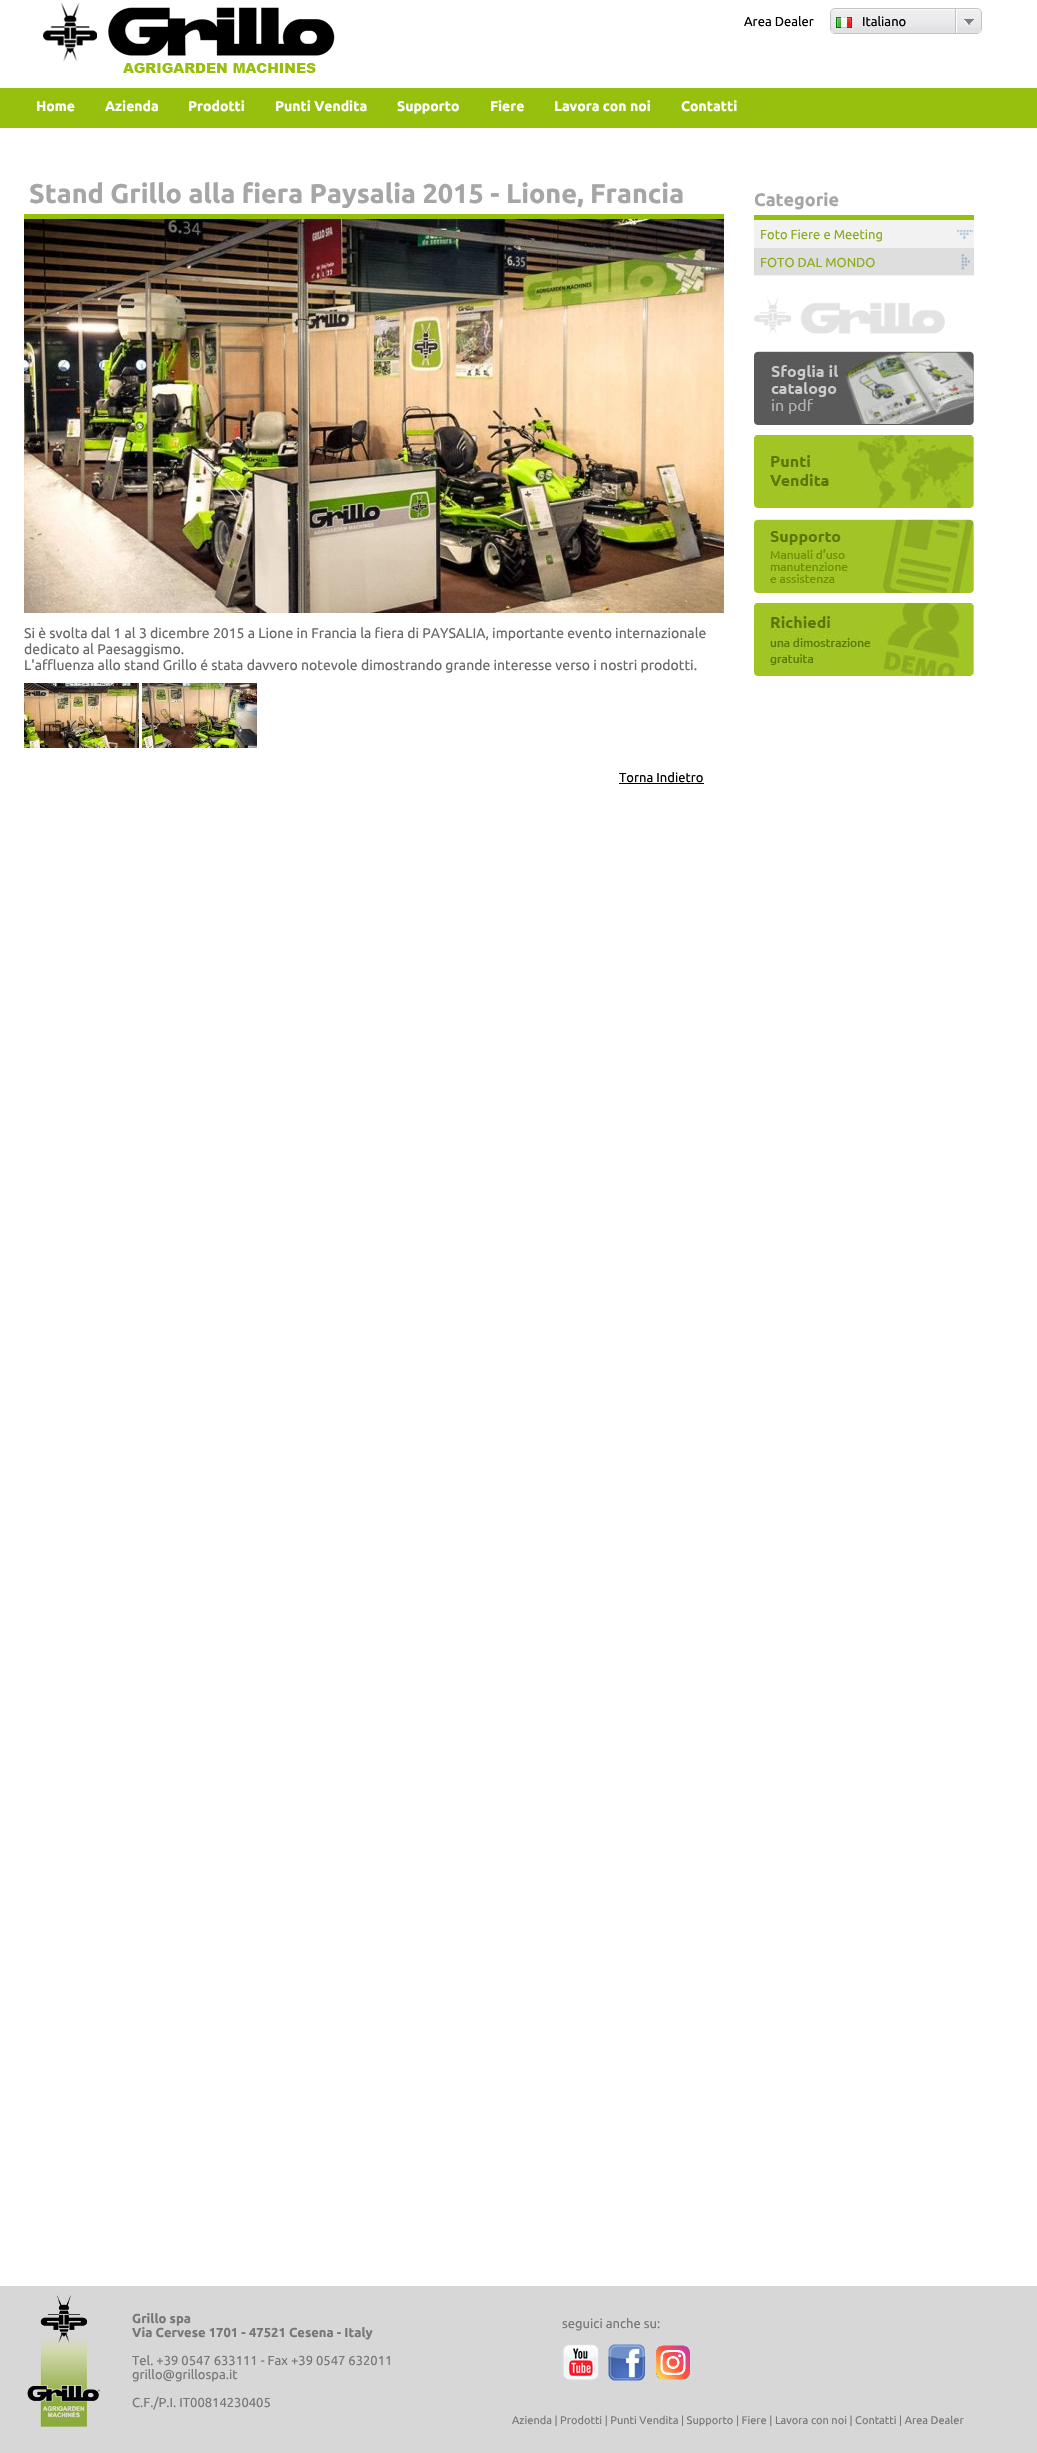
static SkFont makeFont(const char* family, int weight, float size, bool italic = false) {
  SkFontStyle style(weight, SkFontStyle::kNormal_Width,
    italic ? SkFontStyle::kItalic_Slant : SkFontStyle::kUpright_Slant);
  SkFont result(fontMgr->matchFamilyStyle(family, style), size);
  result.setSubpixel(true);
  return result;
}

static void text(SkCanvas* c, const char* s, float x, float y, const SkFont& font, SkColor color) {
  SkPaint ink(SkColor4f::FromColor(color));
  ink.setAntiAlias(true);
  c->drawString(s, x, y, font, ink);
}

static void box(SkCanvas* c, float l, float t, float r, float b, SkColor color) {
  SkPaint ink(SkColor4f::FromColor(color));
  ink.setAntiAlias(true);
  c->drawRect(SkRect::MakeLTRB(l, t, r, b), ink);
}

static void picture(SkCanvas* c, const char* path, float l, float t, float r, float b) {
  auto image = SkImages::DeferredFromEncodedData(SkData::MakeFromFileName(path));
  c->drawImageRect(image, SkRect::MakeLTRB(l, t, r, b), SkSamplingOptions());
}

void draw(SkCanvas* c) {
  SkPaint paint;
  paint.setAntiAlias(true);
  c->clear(0xffffffff);
  picture(c, "img_01.png", 43, 3, 335, 78);
  SkFont face1 = makeFont("Ubuntu", 400, 13);
  text(c, "Area Dealer", 744, 26, face1, 0xff000000);
  paint.setStyle(SkPaint::kStroke_Style);
  paint.setStrokeWidth(1);
  paint.setColor(0xffc3c3c3);
  c->drawRoundRect(SkRect::MakeLTRB(830.5f, 8.5f, 981.5f, 33.5f), 4.5f, 4.5f, paint);
  paint.setStyle(SkPaint::kFill_Style);
  paint.setColor(0xffe2e2e4);
  c->drawPath(SkPathBuilder().moveTo(836, 9).lineTo(976, 9).cubicTo(979, 9, 981, 11, 981, 14).lineTo(981, 33).lineTo(831, 33).lineTo(831, 14).cubicTo(831, 11, 833, 9, 836, 9).close().detach(), paint);
  picture(c, "img_02.png", 831, 9, 981, 27);
  picture(c, "img_03.png", 836, 17, 852, 28);
  text(c, "Italiano", 862, 26, face1, 0xff000000);
  box(c, 956, 9, 957, 33, 0xffffffff);
  box(c, 955, 9, 956, 33, 0xffc3c3c3);
  picture(c, "img_04.png", 964, 19, 974, 25);
  box(c, 0, 88, 1037, 128, 0xff97bf0d);
  SkFont face2 = makeFont("Ubuntu", 700, 14);
  text(c, "Home", 36, 111, face2, 0xffffffff);
  text(c, "Azienda", 105, 111, face2, 0xffffffff);
  text(c, "Prodotti", 188, 111, face2, 0xffffffff);
  text(c, "Punti Vendita", 275, 111, face2, 0xffffffff);
  text(c, "Supporto", 397, 111, face2, 0xffffffff);
  text(c, "Fiere", 490, 111, face2, 0xffffffff);
  text(c, "Lavora con noi", 554, 111, face2, 0xffffffff);
  text(c, "Contatti", 681, 111, face2, 0xffffffff);
  box(c, 24, 214, 724, 219, 0xff97bf0d);
  SkFont face3 = makeFont("Ubuntu", 700, 27);
  text(c, "Stand Grillo alla fiera Paysalia 2015 - Lione, Francia", 29, 203, face3, 0xffa6a6a6);
  picture(c, "img_05.png", 24, 219, 724, 613);
  SkFont face4 = makeFont("Ubuntu", 400, 14);
  text(c, "Si è svolta dal 1 al 3 dicembre 2015 a Lione in Francia la fiera di PAYSALIA, importante evento internazionale", 24, 638, face4, 0xff686868);
  text(c, "dedicato al Paesaggismo.", 24, 654, face4, 0xff686868);
  text(c, "L'affluenza allo stand Grillo é stata davvero notevole dimostrando grande interesse verso i nostri prodotti.", 24, 670, face4, 0xff686868);
  picture(c, "img_06.png", 24, 683, 139, 748);
  picture(c, "img_07.png", 142, 683, 257, 748);
  text(c, "Torna Indietro", 619, 782, face1, 0xff000000);
  box(c, 619, 783, 704, 784, 0xff000000);
  box(c, 754, 215, 974, 220, 0xff97bf0d);
  SkFont face5 = makeFont("Ubuntu", 700, 18);
  text(c, "Categorie", 754, 206, face5, 0xffa6a6a6);
  box(c, 754, 248, 974, 275, 0xffdedede);
  box(c, 754, 220, 974, 248, 0xfff2f2f2);
  picture(c, "img_08.png", 957, 230, 973, 239);
  text(c, "Foto Fiere e Meeting", 760, 239, face1, 0xff8cac20);
  box(c, 754, 275, 974, 276, 0xfff2f2f2);
  picture(c, "img_09.png", 961, 254, 970, 270);
  text(c, "FOTO DAL MONDO", 760, 267, face1, 0xff8cac20);
  picture(c, "img_10.png", 754, 297, 945, 335);
  picture(c, "img_11.png", 754, 351, 974, 425);
  picture(c, "img_12.png", 754, 435, 974, 508);
  picture(c, "img_13.png", 754, 519, 974, 593);
  picture(c, "img_14.png", 754, 603, 974, 676);
  box(c, 0, 2286, 1037, 2453, 0xffd7d7d7);
  picture(c, "img_15.png", 27, 2295, 100, 2427);
  SkFont face6 = makeFont("Ubuntu", 700, 13);
  text(c, "Grillo spa", 132, 2323, face6, 0xff777777);
  text(c, "Via Cervese 1701 - 47521 Cesena - Italy", 132, 2337, face6, 0xff777777);
  text(c, "Tel. +39 0547 633111 - Fax +39 0547 632011", 132, 2365, face1, 0xff777777);
  text(c, "grillo@grillospa.it", 132, 2379, face1, 0xff777777);
  text(c, "C.F./P.I. IT00814230405", 132, 2407, face1, 0xff777777);
  text(c, "seguici anche su:", 562, 2328, face1, 0xff777777);
  picture(c, "img_16.png", 562, 2344, 599, 2381);
  picture(c, "img_17.png", 608, 2344, 646, 2381);
  picture(c, "img_18.png", 656, 2345, 690, 2380);
  SkFont face7 = makeFont("Ubuntu", 400, 11);
  text(c, "Azienda | Prodotti | Punti Vendita | Supporto | Fiere | Lavora con noi | Contatti | Area Dealer", 512, 2424, face7, 0xff777777);
}
